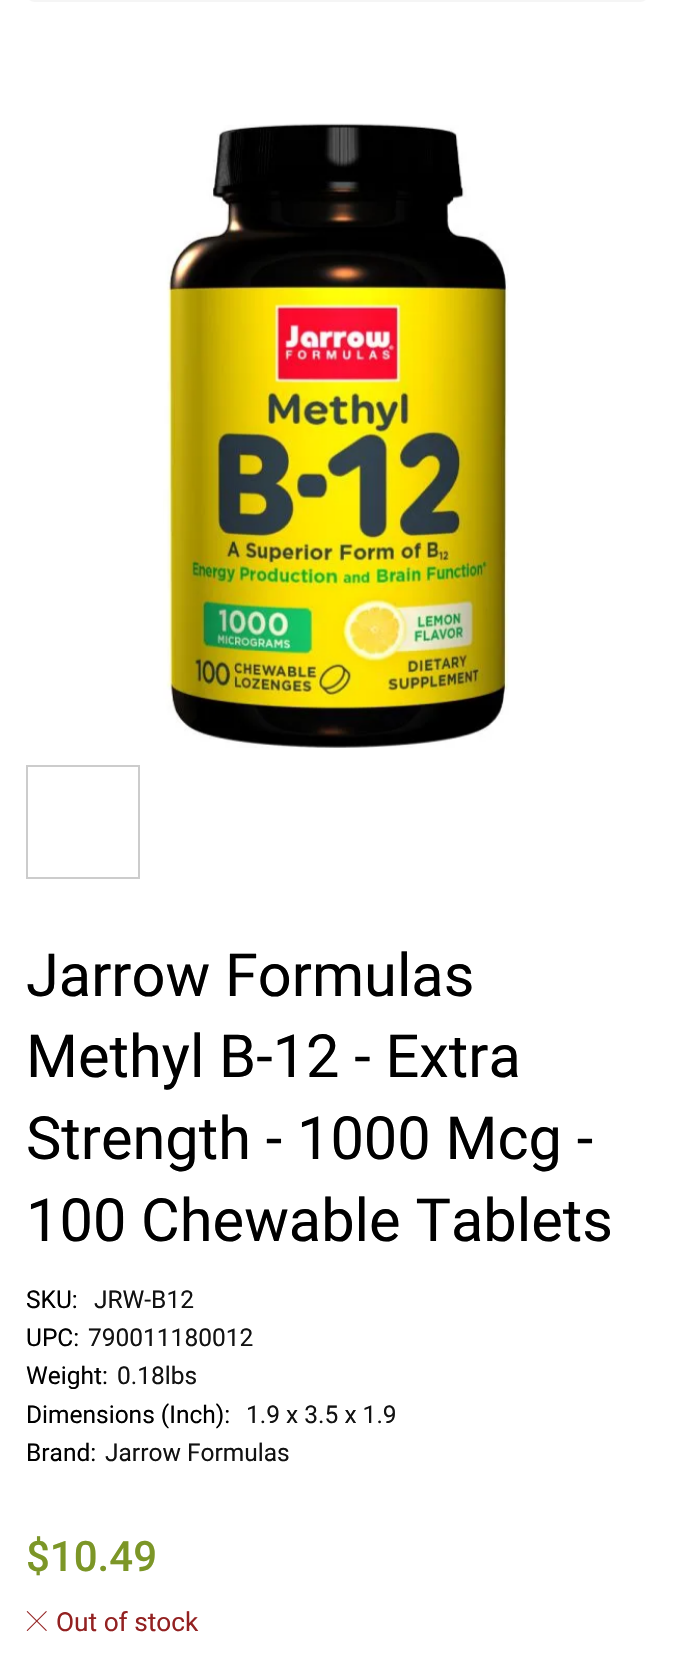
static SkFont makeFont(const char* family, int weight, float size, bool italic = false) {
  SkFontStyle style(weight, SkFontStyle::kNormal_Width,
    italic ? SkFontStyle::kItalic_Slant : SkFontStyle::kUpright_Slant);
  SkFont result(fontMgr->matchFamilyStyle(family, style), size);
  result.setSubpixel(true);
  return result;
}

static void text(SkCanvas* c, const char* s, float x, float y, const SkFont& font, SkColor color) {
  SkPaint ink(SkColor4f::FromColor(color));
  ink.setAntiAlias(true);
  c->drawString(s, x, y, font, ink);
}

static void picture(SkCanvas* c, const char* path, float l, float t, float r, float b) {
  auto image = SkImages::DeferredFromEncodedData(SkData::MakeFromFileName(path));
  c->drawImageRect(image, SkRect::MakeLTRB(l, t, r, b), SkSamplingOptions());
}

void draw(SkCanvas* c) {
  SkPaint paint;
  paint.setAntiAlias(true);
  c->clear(0xffffffff);
  paint.setStyle(SkPaint::kStroke_Style);
  paint.setStrokeWidth(9);
  paint.setColor(0xfff5f5f5);
  c->drawRoundRect(SkRect::MakeLTRB(30.5f, -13.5f, 644.5f, -2.5f), 4.5f, 4.5f, paint);
  picture(c, "img_01.png", 163, 123, 509, 748);
  paint.setStrokeWidth(2);
  paint.setColor(0xffcccccc);
  c->drawRect(SkRect::MakeLTRB(27, 766, 139, 878), paint);
  SkFont face1 = makeFont("Roboto", 400, 59.5f);
  text(c, "Jarrow Formulas", 26, 996, face1, 0xff000000);
  text(c, "Methyl B-12 - Extra", 26, 1077, face1, 0xff000000);
  text(c, "Strength - 1000 Mcg -", 26, 1159, face1, 0xff000000);
  text(c, "100 Chewable Tablets", 26, 1241, face1, 0xff000000);
  SkFont face2 = makeFont("Roboto", 400, 24.5f);
  text(c, "SKU:", 26, 1308, face2, 0xff000000);
  text(c, "JRW-B12", 94, 1308, face2, 0xff121212);
  text(c, "UPC:", 26, 1346, face2, 0xff000000);
  text(c, "790011180012", 88, 1346, face2, 0xff121212);
  text(c, "Weight:", 26, 1384, face2, 0xff000000);
  text(c, "0.18lbs", 117, 1384, face2, 0xff121212);
  text(c, "Dimensions (Inch):", 26, 1423, face2, 0xff000000);
  text(c, "1.9 x 3.5 x 1.9", 246, 1423, face2, 0xff121212);
  text(c, "Brand:", 26, 1461, face2, 0xff000000);
  text(c, "Jarrow Formulas", 105, 1461, face2, 0xff121212);
  SkFont face3 = makeFont("Roboto", 500, 42);
  text(c, "$10.49", 26, 1571, face3, 0xff7c9627);
  picture(c, "img_02.png", 26, 1611, 47, 1631);
  SkFont face4 = makeFont("Roboto", 400, 26.25f);
  text(c, "Out of stock", 56, 1631, face4, 0xff932121);
}
